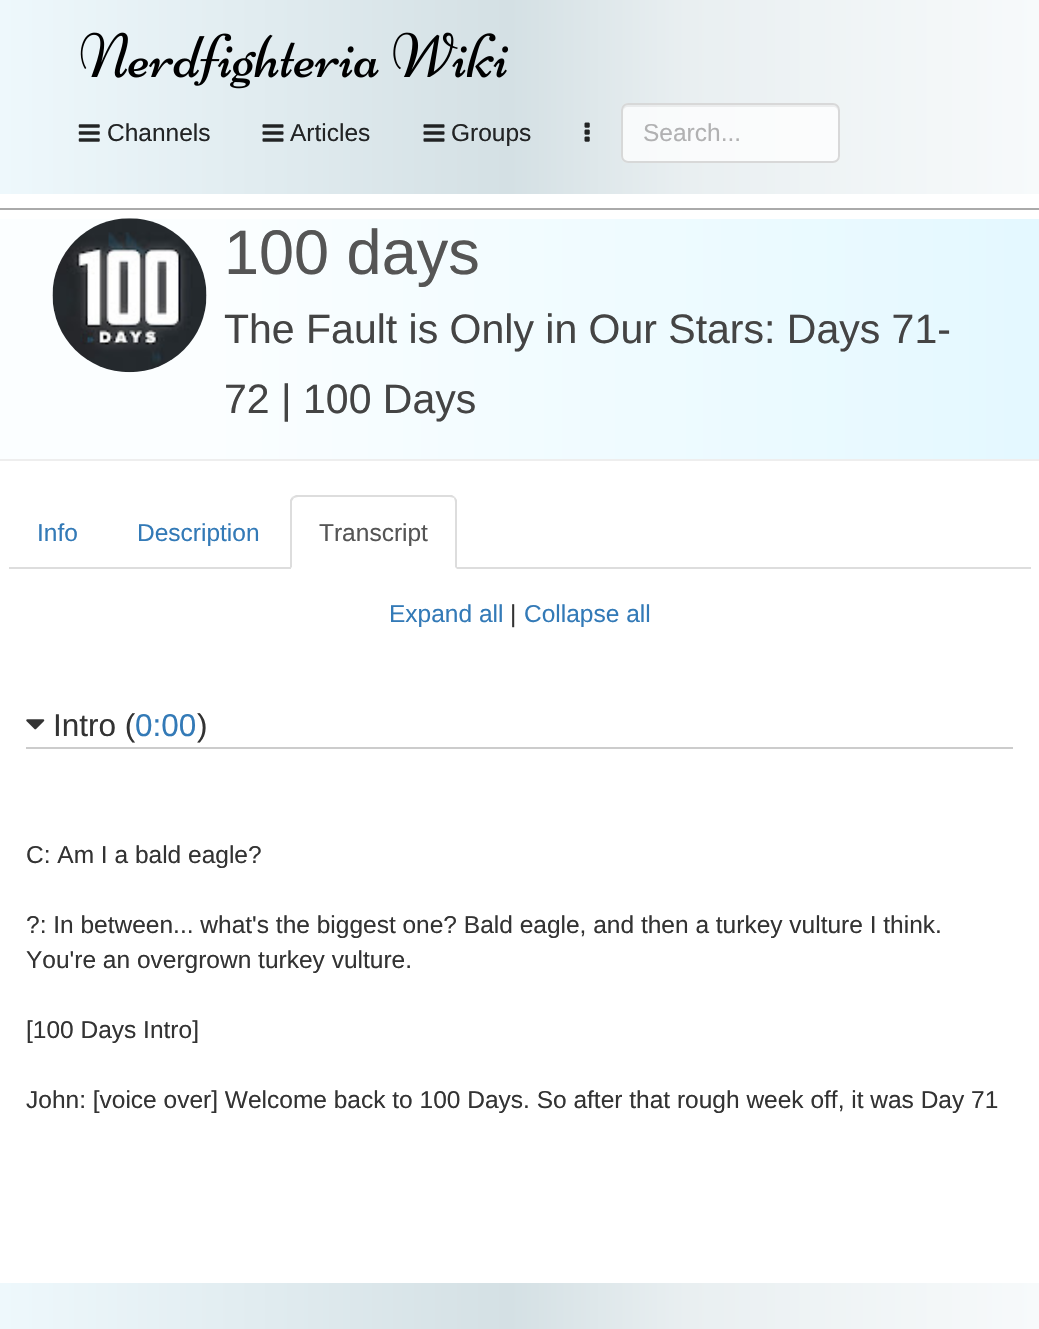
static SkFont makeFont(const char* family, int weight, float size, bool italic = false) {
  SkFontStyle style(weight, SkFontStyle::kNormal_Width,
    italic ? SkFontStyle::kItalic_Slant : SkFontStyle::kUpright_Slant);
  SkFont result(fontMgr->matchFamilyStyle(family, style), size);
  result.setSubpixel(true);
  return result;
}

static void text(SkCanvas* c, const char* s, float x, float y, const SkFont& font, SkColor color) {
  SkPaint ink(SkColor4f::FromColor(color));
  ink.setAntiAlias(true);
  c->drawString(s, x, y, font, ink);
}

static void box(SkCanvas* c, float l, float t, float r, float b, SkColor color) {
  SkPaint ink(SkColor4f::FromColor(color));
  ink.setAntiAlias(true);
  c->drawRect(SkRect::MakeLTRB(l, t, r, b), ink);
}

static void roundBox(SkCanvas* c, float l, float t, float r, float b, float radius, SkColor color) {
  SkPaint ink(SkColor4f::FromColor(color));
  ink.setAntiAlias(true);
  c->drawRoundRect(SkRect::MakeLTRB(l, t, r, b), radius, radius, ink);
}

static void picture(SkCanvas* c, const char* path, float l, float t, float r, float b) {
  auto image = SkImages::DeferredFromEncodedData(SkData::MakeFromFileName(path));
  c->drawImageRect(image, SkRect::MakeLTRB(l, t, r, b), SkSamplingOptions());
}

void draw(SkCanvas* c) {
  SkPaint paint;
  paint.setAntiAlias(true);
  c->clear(0xffffffff);
  {
    const SkColor colors[] = {0xffeef8fc, 0xffd4e0e4, 0xffe9eff1, 0xfff7fafb};
    const float stops[] = {0, 0.49f, 0.66f, 1};
    const SkPoint ends[] = {{0, -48}, {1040, -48}};
    paint.setShader(SkGradientShader::MakeLinear(ends, colors, stops, 4, SkTileMode::kClamp));
    paint.setAlpha(255);
  }
  c->drawRect(SkRect::MakeLTRB(0, 0, 1039, 194), paint);
  picture(c, "img_01.png", 80, 32, 509, 89);
  picture(c, "img_02.png", 78, 124, 100, 142);
  SkFont face1 = makeFont("Liberation Sans", 400, 24.5f);
  text(c, "Channels", 107, 141, face1, 0xff222425);
  picture(c, "img_03.png", 262, 124, 284, 142);
  text(c, "Articles", 290, 141, face1, 0xff222425);
  picture(c, "img_04.png", 423, 124, 445, 142);
  text(c, "Groups", 451, 141, face1, 0xff222425);
  picture(c, "img_05.png", 584, 122, 590, 142);
  roundBox(c, 621, 103, 840, 163, 7, 0xbfffffff);
  paint.setShader(nullptr);
  paint.setColor(0x0f000000);
  c->drawPath(SkPathBuilder().moveTo(628, 107).lineTo(833, 107).cubicTo(836, 107, 838, 109, 838, 112).lineTo(838, 110).cubicTo(838, 107, 836, 105, 833, 105).lineTo(628, 105).cubicTo(625, 105, 623, 107, 623, 110).lineTo(623, 112).cubicTo(623, 109, 625, 107, 628, 107).close().detach(), paint);
  paint.setStyle(SkPaint::kStroke_Style);
  paint.setStrokeWidth(2);
  paint.setColor(0xbfcccccc);
  c->drawRoundRect(SkRect::MakeLTRB(622, 104, 839, 162), 6, 6, paint);
  text(c, "Search...", 643, 141, face1, 0xffb1b1b2);
  box(c, 0, 208, 1039, 210, 0xffaaaaaa);
  paint.setStyle(SkPaint::kFill_Style);
  {
    const SkColor colors[] = {0xfffbfeff, 0xffe3f8ff};
    const float stops[] = {0.21f, 1};
    const SkPoint ends[] = {{-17, 339}, {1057, 339}};
    paint.setShader(SkGradientShader::MakeLinear(ends, colors, stops, 2, SkTileMode::kClamp));
    paint.setAlpha(255);
  }
  c->drawRect(SkRect::MakeLTRB(0, 219, 1039, 459), paint);
  box(c, 0, 459, 1039, 461, 0xffeeeeee);
  picture(c, "img_06.png", 52, 218, 207, 373);
  SkFont face2 = makeFont("Liberation Sans", 400, 63);
  text(c, "100 days", 224, 274, face2, 0xff555555);
  SkFont face3 = makeFont("Liberation Sans", 400, 41);
  text(c, "The Fault is Only in Our Stars: Days 71-", 224, 343, face3, 0xff444444);
  text(c, "72 | 100 Days", 224, 413, face3, 0xff444444);
  box(c, 9, 567, 1031, 569, 0xffdddddd);
  text(c, "Info", 37, 541, face1, 0xff337ab7);
  text(c, "Description", 137, 541, face1, 0xff337ab7);
  paint.setShader(nullptr);
  paint.setColor(0xffffffff);
  c->drawPath(SkPathBuilder().moveTo(298, 495).lineTo(450, 495).cubicTo(454, 495, 457, 498, 457, 502).lineTo(457, 569).lineTo(291, 569).lineTo(291, 502).cubicTo(291, 498, 294, 495, 298, 495).close().detach(), paint);
  paint.setColor(0xffdddddd);
  c->drawPath(SkPathBuilder().moveTo(298, 497).cubicTo(296, 497, 295, 498, 294, 498).lineTo(292, 497).lineTo(296, 495).lineTo(452, 495).lineTo(455, 497).lineTo(454, 498).cubicTo(453, 498, 452, 497, 450, 497).close().detach(), paint);
  c->drawPath(SkPathBuilder().moveTo(455, 497).lineTo(457, 500).lineTo(457, 569).lineTo(455, 567).lineTo(455, 502).cubicTo(455, 500, 454, 499, 454, 498).close().detach(), paint);
  c->drawPath(SkPathBuilder().moveTo(290, 569).lineTo(290, 500).lineTo(292, 497).lineTo(294, 498).lineTo(292, 501).lineTo(292, 567).close().detach(), paint);
  text(c, "Transcript", 319, 541, face1, 0xff555555);
  text(c, "Expand all", 389, 622, face1, 0xff337ab7);
  text(c, "|", 510, 622, face1, 0xff333333);
  text(c, "Collapse all", 524, 622, face1, 0xff337ab7);
  box(c, 26, 747, 1013, 749, 0xffcccccc);
  picture(c, "img_07.png", 26, 719, 45, 730);
  SkFont face4 = makeFont("Liberation Sans", 400, 31.5f);
  text(c, "Intro (", 53, 736, face4, 0xff333333);
  text(c, "0:00", 135, 736, face4, 0xff337ab7);
  text(c, ")", 197, 736, face4, 0xff333333);
  text(c, "C: Am I a bald eagle?", 26, 863, face1, 0xff333333);
  text(c, "?: In between... what's the biggest one? Bald eagle, and then a turkey vulture I think.", 26, 933, face1, 0xff333333);
  text(c, "You're an overgrown turkey vulture.", 26, 968, face1, 0xff333333);
  text(c, "[100 Days Intro]", 26, 1038, face1, 0xff333333);
  text(c, "John: [voice over] Welcome back to 100 Days. So after that rough week off, it was Day 71", 26, 1108, face1, 0xff333333);
  {
    const SkColor colors[] = {0xffeef8fc, 0xffd4e0e4, 0xffe9eff1, 0xfff7fafb};
    const float stops[] = {0, 0.49f, 0.66f, 1};
    const SkPoint ends[] = {{0, 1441}, {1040, 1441}};
    paint.setShader(SkGradientShader::MakeLinear(ends, colors, stops, 4, SkTileMode::kClamp));
    paint.setAlpha(255);
  }
  c->drawRect(SkRect::MakeLTRB(0, 1283, 1039, 1329), paint);
}
